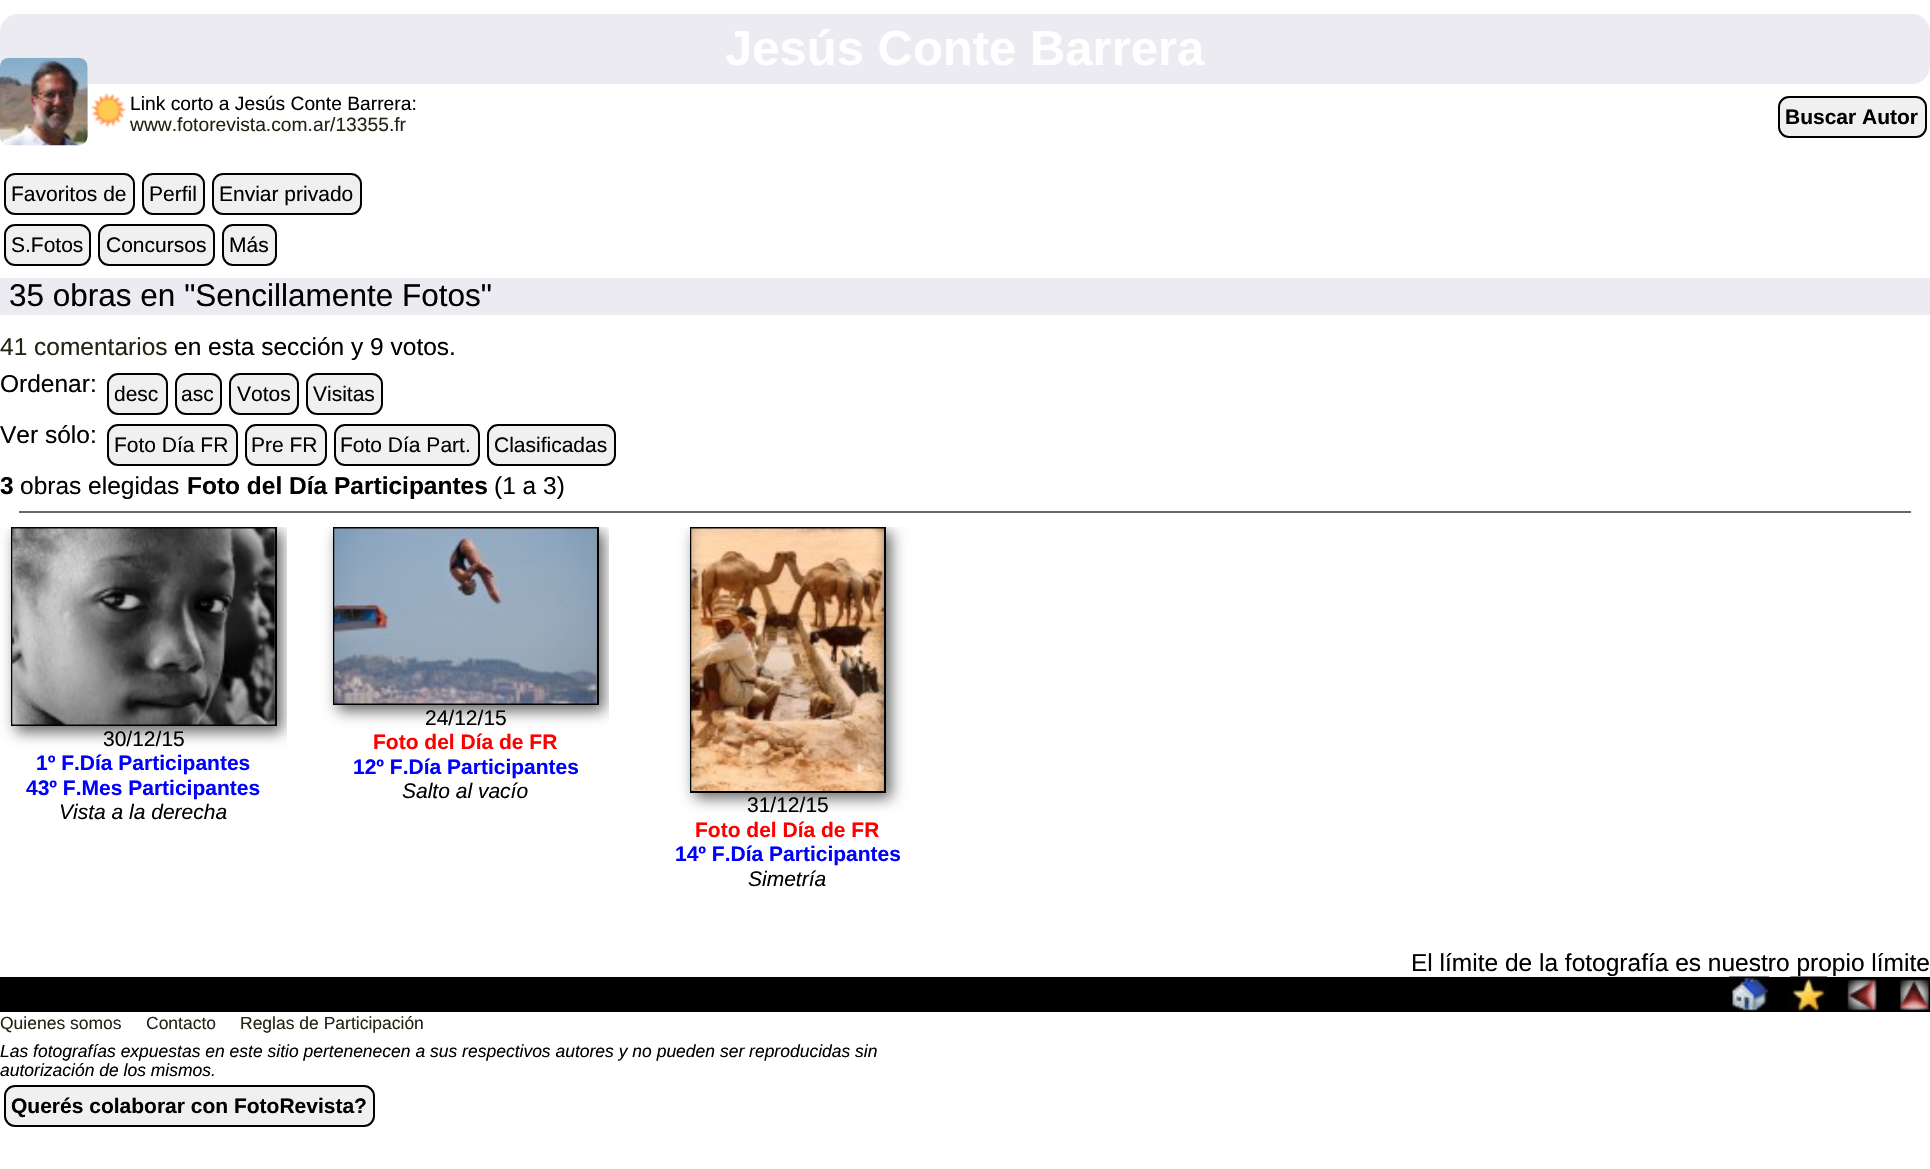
static SkFont makeFont(const char* family, int weight, float size, bool italic = false) {
  SkFontStyle style(weight, SkFontStyle::kNormal_Width,
    italic ? SkFontStyle::kItalic_Slant : SkFontStyle::kUpright_Slant);
  SkFont result(fontMgr->matchFamilyStyle(family, style), size);
  result.setSubpixel(true);
  return result;
}

static void text(SkCanvas* c, const char* s, float x, float y, const SkFont& font, SkColor color) {
  SkPaint ink(SkColor4f::FromColor(color));
  ink.setAntiAlias(true);
  c->drawString(s, x, y, font, ink);
}

static void box(SkCanvas* c, float l, float t, float r, float b, SkColor color) {
  SkPaint ink(SkColor4f::FromColor(color));
  ink.setAntiAlias(true);
  c->drawRect(SkRect::MakeLTRB(l, t, r, b), ink);
}

static void roundBox(SkCanvas* c, float l, float t, float r, float b, float radius, SkColor color) {
  SkPaint ink(SkColor4f::FromColor(color));
  ink.setAntiAlias(true);
  c->drawRoundRect(SkRect::MakeLTRB(l, t, r, b), radius, radius, ink);
}

static void picture(SkCanvas* c, const char* path, float l, float t, float r, float b) {
  auto image = SkImages::DeferredFromEncodedData(SkData::MakeFromFileName(path));
  c->drawImageRect(image, SkRect::MakeLTRB(l, t, r, b), SkSamplingOptions());
}

void draw(SkCanvas* c) {
  SkPaint paint;
  paint.setAntiAlias(true);
  c->clear(0xffffffff);
  roundBox(c, 0, 14, 1930, 84, 18, 0xffebebf1);
  SkFont face1 = makeFont("Liberation Sans", 700, 49);
  text(c, "Jesús Conte Barrera", 725, 65, face1, 0xffffffff);
  roundBox(c, 0, 58, 88, 145, 9, 0xffebebf1);
  picture(c, "img_01.png", 0, 57, 88, 146);
  picture(c, "img_02.png", 91, 92, 126, 128);
  SkFont face2 = makeFont("Liberation Sans", 400, 19.25f);
  text(c, "Link corto a Jesús Conte Barrera:", 130, 110, face2, 0xff000000);
  text(c, "www.fotorevista.com.ar/13355.fr", 130, 131, face2, 0xff242415);
  paint.setColor(0xfff0f0f0);
  c->drawRoundRect(SkRect::MakeLTRB(1779, 97, 1926, 137), 10, 10, paint);
  paint.setStyle(SkPaint::kStroke_Style);
  paint.setStrokeWidth(2);
  paint.setColor(0xff000000);
  c->drawRoundRect(SkRect::MakeLTRB(1779, 97, 1926, 137), 10, 10, paint);
  SkFont face3 = makeFont("Liberation Sans", 700, 21);
  text(c, "Buscar Autor", 1785, 124, face3, 0xff000000);
  paint.setStyle(SkPaint::kFill_Style);
  paint.setColor(0xfff0f0f0);
  c->drawRoundRect(SkRect::MakeLTRB(5, 174, 134, 214), 10, 10, paint);
  paint.setStyle(SkPaint::kStroke_Style);
  paint.setColor(0xff000000);
  c->drawRoundRect(SkRect::MakeLTRB(5, 174, 134, 214), 10, 10, paint);
  SkFont face4 = makeFont("Liberation Sans", 400, 21);
  text(c, "Favoritos de", 11, 201, face4, 0xff000000);
  paint.setStyle(SkPaint::kFill_Style);
  paint.setColor(0xfff0f0f0);
  c->drawRoundRect(SkRect::MakeLTRB(143, 174, 204, 214), 10, 10, paint);
  paint.setStyle(SkPaint::kStroke_Style);
  paint.setColor(0xff000000);
  c->drawRoundRect(SkRect::MakeLTRB(143, 174, 204, 214), 10, 10, paint);
  text(c, "Perfil", 149, 201, face4, 0xff000000);
  paint.setStyle(SkPaint::kFill_Style);
  paint.setColor(0xfff0f0f0);
  c->drawRoundRect(SkRect::MakeLTRB(213, 174, 361, 214), 10, 10, paint);
  paint.setStyle(SkPaint::kStroke_Style);
  paint.setColor(0xff000000);
  c->drawRoundRect(SkRect::MakeLTRB(213, 174, 361, 214), 10, 10, paint);
  text(c, "Enviar privado", 219, 201, face4, 0xff000000);
  paint.setStyle(SkPaint::kFill_Style);
  paint.setColor(0xfff0f0f0);
  c->drawRoundRect(SkRect::MakeLTRB(5, 225, 90, 265), 10, 10, paint);
  paint.setStyle(SkPaint::kStroke_Style);
  paint.setColor(0xff000000);
  c->drawRoundRect(SkRect::MakeLTRB(5, 225, 90, 265), 10, 10, paint);
  text(c, "S.Fotos", 11, 252, face4, 0xff000000);
  paint.setStyle(SkPaint::kFill_Style);
  paint.setColor(0xfff0f0f0);
  c->drawRoundRect(SkRect::MakeLTRB(99, 225, 214, 265), 10, 10, paint);
  paint.setStyle(SkPaint::kStroke_Style);
  paint.setColor(0xff000000);
  c->drawRoundRect(SkRect::MakeLTRB(99, 225, 214, 265), 10, 10, paint);
  text(c, "Concursos", 106, 252, face4, 0xff000000);
  paint.setStyle(SkPaint::kFill_Style);
  paint.setColor(0xfff0f0f0);
  c->drawRoundRect(SkRect::MakeLTRB(223, 225, 276, 265), 10, 10, paint);
  paint.setStyle(SkPaint::kStroke_Style);
  paint.setColor(0xff000000);
  c->drawRoundRect(SkRect::MakeLTRB(223, 225, 276, 265), 10, 10, paint);
  text(c, "Más", 229, 252, face4, 0xff000000);
  box(c, 0, 278, 1930, 315, 0xffebebf1);
  SkFont face5 = makeFont("Liberation Sans", 400, 31.5f);
  text(c, "35 obras en \"Sencillamente Fotos\"", 9, 306, face5, 0xff000000);
  SkFont face6 = makeFont("Liberation Sans", 400, 24.5f);
  text(c, "41 comentarios", 0, 355, face6, 0xff242415);
  text(c, "en esta sección y 9 votos.", 174, 355, face6, 0xff000000);
  text(c, "Ordenar:", 0, 392, face6, 0xff000000);
  paint.setStyle(SkPaint::kFill_Style);
  paint.setColor(0xfff0f0f0);
  c->drawRoundRect(SkRect::MakeLTRB(108, 374, 167, 414), 10, 10, paint);
  paint.setStyle(SkPaint::kStroke_Style);
  paint.setColor(0xff000000);
  c->drawRoundRect(SkRect::MakeLTRB(108, 374, 167, 414), 10, 10, paint);
  text(c, "desc", 114, 401, face4, 0xff000000);
  paint.setStyle(SkPaint::kFill_Style);
  paint.setColor(0xfff0f0f0);
  c->drawRoundRect(SkRect::MakeLTRB(176, 374, 221, 414), 10, 10, paint);
  paint.setStyle(SkPaint::kStroke_Style);
  paint.setColor(0xff000000);
  c->drawRoundRect(SkRect::MakeLTRB(176, 374, 221, 414), 10, 10, paint);
  text(c, "asc", 181, 401, face4, 0xff000000);
  paint.setStyle(SkPaint::kFill_Style);
  paint.setColor(0xfff0f0f0);
  c->drawRoundRect(SkRect::MakeLTRB(230, 374, 298, 414), 10, 10, paint);
  paint.setStyle(SkPaint::kStroke_Style);
  paint.setColor(0xff000000);
  c->drawRoundRect(SkRect::MakeLTRB(230, 374, 298, 414), 10, 10, paint);
  text(c, "Votos", 237, 401, face4, 0xff000000);
  paint.setStyle(SkPaint::kFill_Style);
  paint.setColor(0xfff0f0f0);
  c->drawRoundRect(SkRect::MakeLTRB(307, 374, 382, 414), 10, 10, paint);
  paint.setStyle(SkPaint::kStroke_Style);
  paint.setColor(0xff000000);
  c->drawRoundRect(SkRect::MakeLTRB(307, 374, 382, 414), 10, 10, paint);
  text(c, "Visitas", 313, 401, face4, 0xff000000);
  text(c, "Ver sólo:", 0, 443, face6, 0xff000000);
  paint.setStyle(SkPaint::kFill_Style);
  paint.setColor(0xfff0f0f0);
  c->drawRoundRect(SkRect::MakeLTRB(108, 425, 237, 465), 10, 10, paint);
  paint.setStyle(SkPaint::kStroke_Style);
  paint.setColor(0xff000000);
  c->drawRoundRect(SkRect::MakeLTRB(108, 425, 237, 465), 10, 10, paint);
  text(c, "Foto Día FR", 114, 452, face4, 0xff000000);
  paint.setStyle(SkPaint::kFill_Style);
  paint.setColor(0xfff0f0f0);
  c->drawRoundRect(SkRect::MakeLTRB(246, 425, 326, 465), 10, 10, paint);
  paint.setStyle(SkPaint::kStroke_Style);
  paint.setColor(0xff000000);
  c->drawRoundRect(SkRect::MakeLTRB(246, 425, 326, 465), 10, 10, paint);
  text(c, "Pre FR", 251, 452, face4, 0xff000000);
  paint.setStyle(SkPaint::kFill_Style);
  paint.setColor(0xfff0f0f0);
  c->drawRoundRect(SkRect::MakeLTRB(335, 425, 479, 465), 10, 10, paint);
  paint.setStyle(SkPaint::kStroke_Style);
  paint.setColor(0xff000000);
  c->drawRoundRect(SkRect::MakeLTRB(335, 425, 479, 465), 10, 10, paint);
  text(c, "Foto Día Part.", 340, 452, face4, 0xff000000);
  paint.setStyle(SkPaint::kFill_Style);
  paint.setColor(0xfff0f0f0);
  c->drawRoundRect(SkRect::MakeLTRB(488, 425, 615, 465), 10, 10, paint);
  paint.setStyle(SkPaint::kStroke_Style);
  paint.setColor(0xff000000);
  c->drawRoundRect(SkRect::MakeLTRB(488, 425, 615, 465), 10, 10, paint);
  text(c, "Clasificadas", 494, 452, face4, 0xff000000);
  SkFont face7 = makeFont("Liberation Sans", 700, 24.5f);
  text(c, "3", 0, 494, face7, 0xff000000);
  text(c, "obras elegidas", 20, 494, face6, 0xff000000);
  text(c, "Foto del Día Participantes", 187, 494, face7, 0xff000000);
  text(c, "(1 a 3)", 494, 494, face6, 0xff000000);
  box(c, 19, 511, 1911, 513, 0xff666666);
  c->save();
  c->clipRect(SkRect::MakeLTRB(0, 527, 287, 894));
  paint.setStyle(SkPaint::kFill_Style);
  paint.setColor(0xff666666);
  paint.setMaskFilter(SkMaskFilter::MakeBlur(kNormal_SkBlurStyle, 7));
  c->drawRect(SkRect::MakeLTRB(16, 532, 282, 732), paint);
  paint.setMaskFilter(nullptr);
  c->restore();
  paint.setStyle(SkPaint::kStroke_Style);
  paint.setColor(0xff000000);
  c->drawRect(SkRect::MakeLTRB(12, 528, 276, 725), paint);
  picture(c, "img_03.png", 12, 528, 275, 725);
  text(c, "30/12/15", 103, 746, face4, 0xff000000);
  text(c, "1º F.Día Participantes", 36, 770, face3, 0xff0000ff);
  text(c, "43º F.Mes Participantes", 26, 795, face3, 0xff0000ff);
  SkFont face8 = makeFont("Liberation Sans", 400, 21, true);
  text(c, "Vista a la derecha", 59, 819, face8, 0xff000000);
  c->save();
  c->clipRect(SkRect::MakeLTRB(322, 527, 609, 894));
  paint.setStyle(SkPaint::kFill_Style);
  paint.setColor(0xff666666);
  paint.setMaskFilter(SkMaskFilter::MakeBlur(kNormal_SkBlurStyle, 7));
  c->drawRect(SkRect::MakeLTRB(338, 532, 604, 711), paint);
  paint.setMaskFilter(nullptr);
  c->restore();
  paint.setStyle(SkPaint::kStroke_Style);
  paint.setColor(0xff000000);
  c->drawRect(SkRect::MakeLTRB(334, 528, 598, 704), paint);
  picture(c, "img_04.png", 334, 528, 597, 704);
  text(c, "24/12/15", 425, 725, face4, 0xff000000);
  text(c, "Foto del Día de FR", 373, 749, face3, 0xffff0000);
  text(c, "12º F.Día Participantes", 353, 774, face3, 0xff0000ff);
  text(c, "Salto al vacío", 402, 798, face8, 0xff000000);
  c->save();
  c->clipRect(SkRect::MakeLTRB(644, 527, 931, 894));
  paint.setStyle(SkPaint::kFill_Style);
  paint.setColor(0xff666666);
  paint.setMaskFilter(SkMaskFilter::MakeBlur(kNormal_SkBlurStyle, 7));
  c->drawRect(SkRect::MakeLTRB(695, 532, 891, 798), paint);
  paint.setMaskFilter(nullptr);
  c->restore();
  paint.setStyle(SkPaint::kStroke_Style);
  paint.setColor(0xff000000);
  c->drawRect(SkRect::MakeLTRB(691, 528, 885, 792), paint);
  picture(c, "img_05.png", 691, 528, 884, 791);
  text(c, "31/12/15", 747, 812, face4, 0xff000000);
  text(c, "Foto del Día de FR", 695, 837, face3, 0xffff0000);
  text(c, "14º F.Día Participantes", 675, 861, face3, 0xff0000ff);
  text(c, "Simetría", 748, 886, face8, 0xff000000);
  text(c, "El límite de la fotografía es nuestro propio límite", 1411, 971, face6, 0xff000000);
  box(c, 0, 977, 1930, 1012, 0xff000000);
  picture(c, "img_06.png", 1729, 976, 1770, 1012);
  picture(c, "img_07.png", 1790, 976, 1827, 1012);
  picture(c, "img_08.png", 1847, 979, 1877, 1012);
  picture(c, "img_09.png", 1899, 979, 1929, 1011);
  SkFont face9 = makeFont("Liberation Sans", 400, 17.5f);
  text(c, "Quienes somos", 0, 1029, face9, 0xff242415);
  text(c, "Contacto", 146, 1029, face9, 0xff242415);
  text(c, "Reglas de Participación", 240, 1029, face9, 0xff242415);
  SkFont face10 = makeFont("Liberation Sans", 400, 17.5f, true);
  text(c, "Las fotografías expuestas en este sitio pertenenecen a sus respectivos autores y no pueden ser reproducidas sin", 0, 1057, face10, 0xff000000);
  text(c, "autorización de los mismos.", 0, 1076, face10, 0xff000000);
  paint.setStyle(SkPaint::kFill_Style);
  paint.setColor(0xfff0f0f0);
  c->drawRoundRect(SkRect::MakeLTRB(5, 1086, 374, 1126), 10, 10, paint);
  paint.setStyle(SkPaint::kStroke_Style);
  paint.setColor(0xff000000);
  c->drawRoundRect(SkRect::MakeLTRB(5, 1086, 374, 1126), 10, 10, paint);
  text(c, "Querés colaborar con FotoRevista?", 11, 1113, face3, 0xff000000);
}
